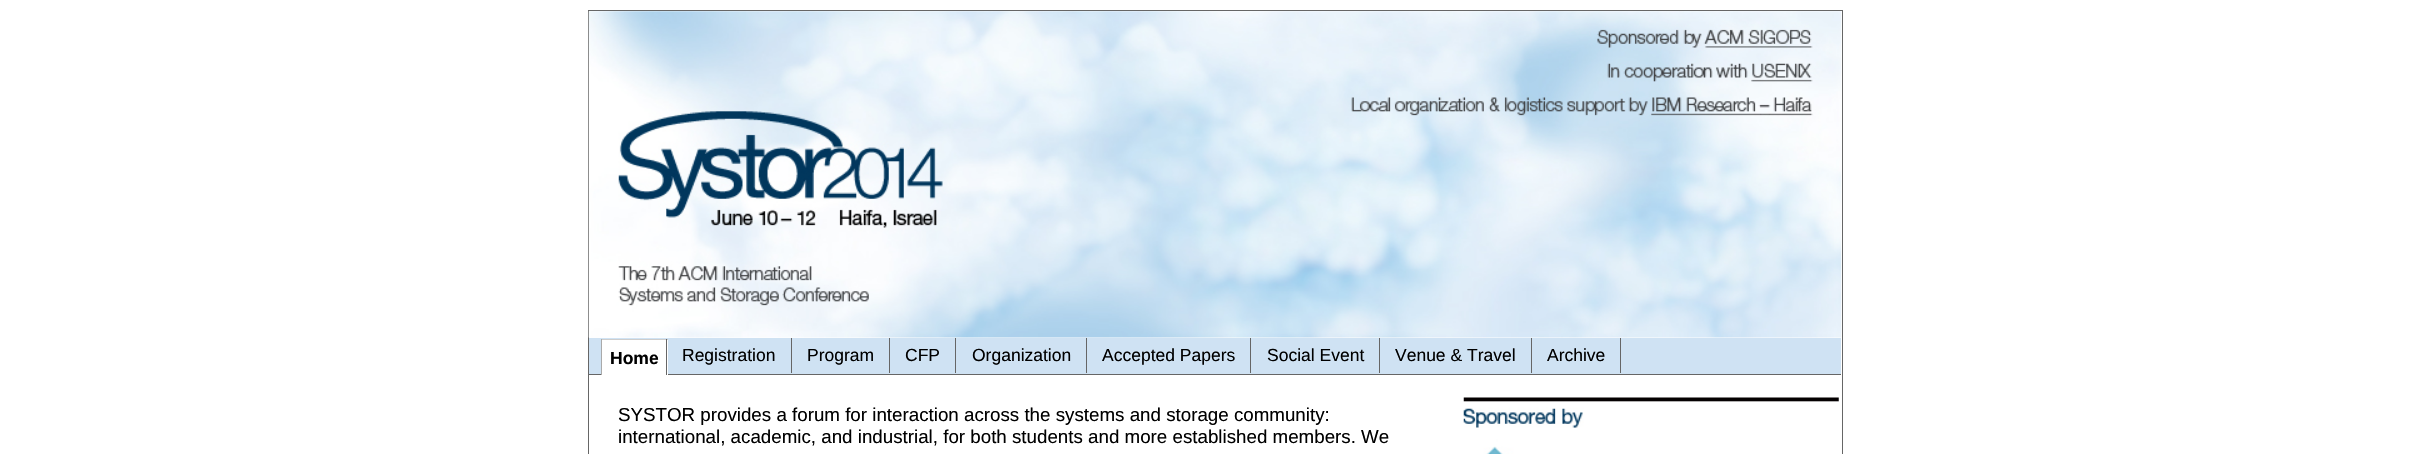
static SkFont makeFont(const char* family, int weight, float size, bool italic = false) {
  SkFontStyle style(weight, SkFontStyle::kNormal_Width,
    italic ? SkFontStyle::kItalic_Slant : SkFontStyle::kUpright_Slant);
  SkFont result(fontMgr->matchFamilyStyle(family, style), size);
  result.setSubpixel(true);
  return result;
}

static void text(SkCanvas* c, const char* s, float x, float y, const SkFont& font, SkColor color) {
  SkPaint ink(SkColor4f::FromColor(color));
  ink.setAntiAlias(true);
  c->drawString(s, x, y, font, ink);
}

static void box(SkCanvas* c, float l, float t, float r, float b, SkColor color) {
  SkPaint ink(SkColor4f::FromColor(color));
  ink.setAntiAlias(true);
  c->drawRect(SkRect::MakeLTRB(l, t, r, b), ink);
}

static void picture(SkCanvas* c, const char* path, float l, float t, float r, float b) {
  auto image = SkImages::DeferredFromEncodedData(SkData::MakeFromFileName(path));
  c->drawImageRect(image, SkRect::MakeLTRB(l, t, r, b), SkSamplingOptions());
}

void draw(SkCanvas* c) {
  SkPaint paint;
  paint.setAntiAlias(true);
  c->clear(0xffffffff);
  paint.setStyle(SkPaint::kStroke_Style);
  paint.setStrokeWidth(1);
  paint.setColor(0xff666666);
  c->drawRect(SkRect::MakeLTRB(588.5f, 10.5f, 1842.5f, 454.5f), paint);
  picture(c, "img_01.png", 588, 11, 1842, 338);
  box(c, 589, 338, 1841, 374, 0xffcfe2f3);
  box(c, 589, 374, 1841, 375, 0xff666666);
  box(c, 602, 340, 668, 375, 0xffffffff);
  box(c, 601, 339, 668, 340, 0xffcdcdcd);
  box(c, 666, 339, 667, 375, 0xff666666);
  box(c, 601, 339, 602, 375, 0xffaaaaaa);
  SkFont face1 = makeFont("Liberation Sans", 700, 17.5f);
  text(c, "Home", 610, 364, face1, 0xff000000);
  box(c, 791, 338, 792, 373, 0xff666666);
  SkFont face2 = makeFont("Liberation Sans", 400, 17.5f);
  text(c, "Registration", 682, 361, face2, 0xff000000);
  box(c, 889, 338, 890, 373, 0xff666666);
  text(c, "Program", 807, 361, face2, 0xff000000);
  box(c, 955, 338, 956, 373, 0xff666666);
  text(c, "CFP", 905, 361, face2, 0xff000000);
  box(c, 1086, 338, 1087, 373, 0xff666666);
  text(c, "Organization", 972, 361, face2, 0xff000000);
  box(c, 1250, 338, 1251, 373, 0xff666666);
  text(c, "Accepted Papers", 1102, 361, face2, 0xff000000);
  box(c, 1379, 338, 1380, 373, 0xff666666);
  text(c, "Social Event", 1267, 361, face2, 0xff000000);
  box(c, 1531, 338, 1532, 373, 0xff666666);
  text(c, "Venue & Travel", 1395, 361, face2, 0xff000000);
  box(c, 1620, 338, 1621, 373, 0xff666666);
  text(c, "Archive", 1547, 361, face2, 0xff000000);
  SkFont face3 = makeFont("Liberation Sans", 400, 18.75f);
  text(c, "SYSTOR provides a forum for interaction across the systems and storage community:", 618, 421, face3, 0xff000000);
  text(c, "international, academic, and industrial, for both students and more established members. We", 618, 443, face3, 0xff000000);
  picture(c, "img_02.png", 1463, 397, 1839, 454);
}
